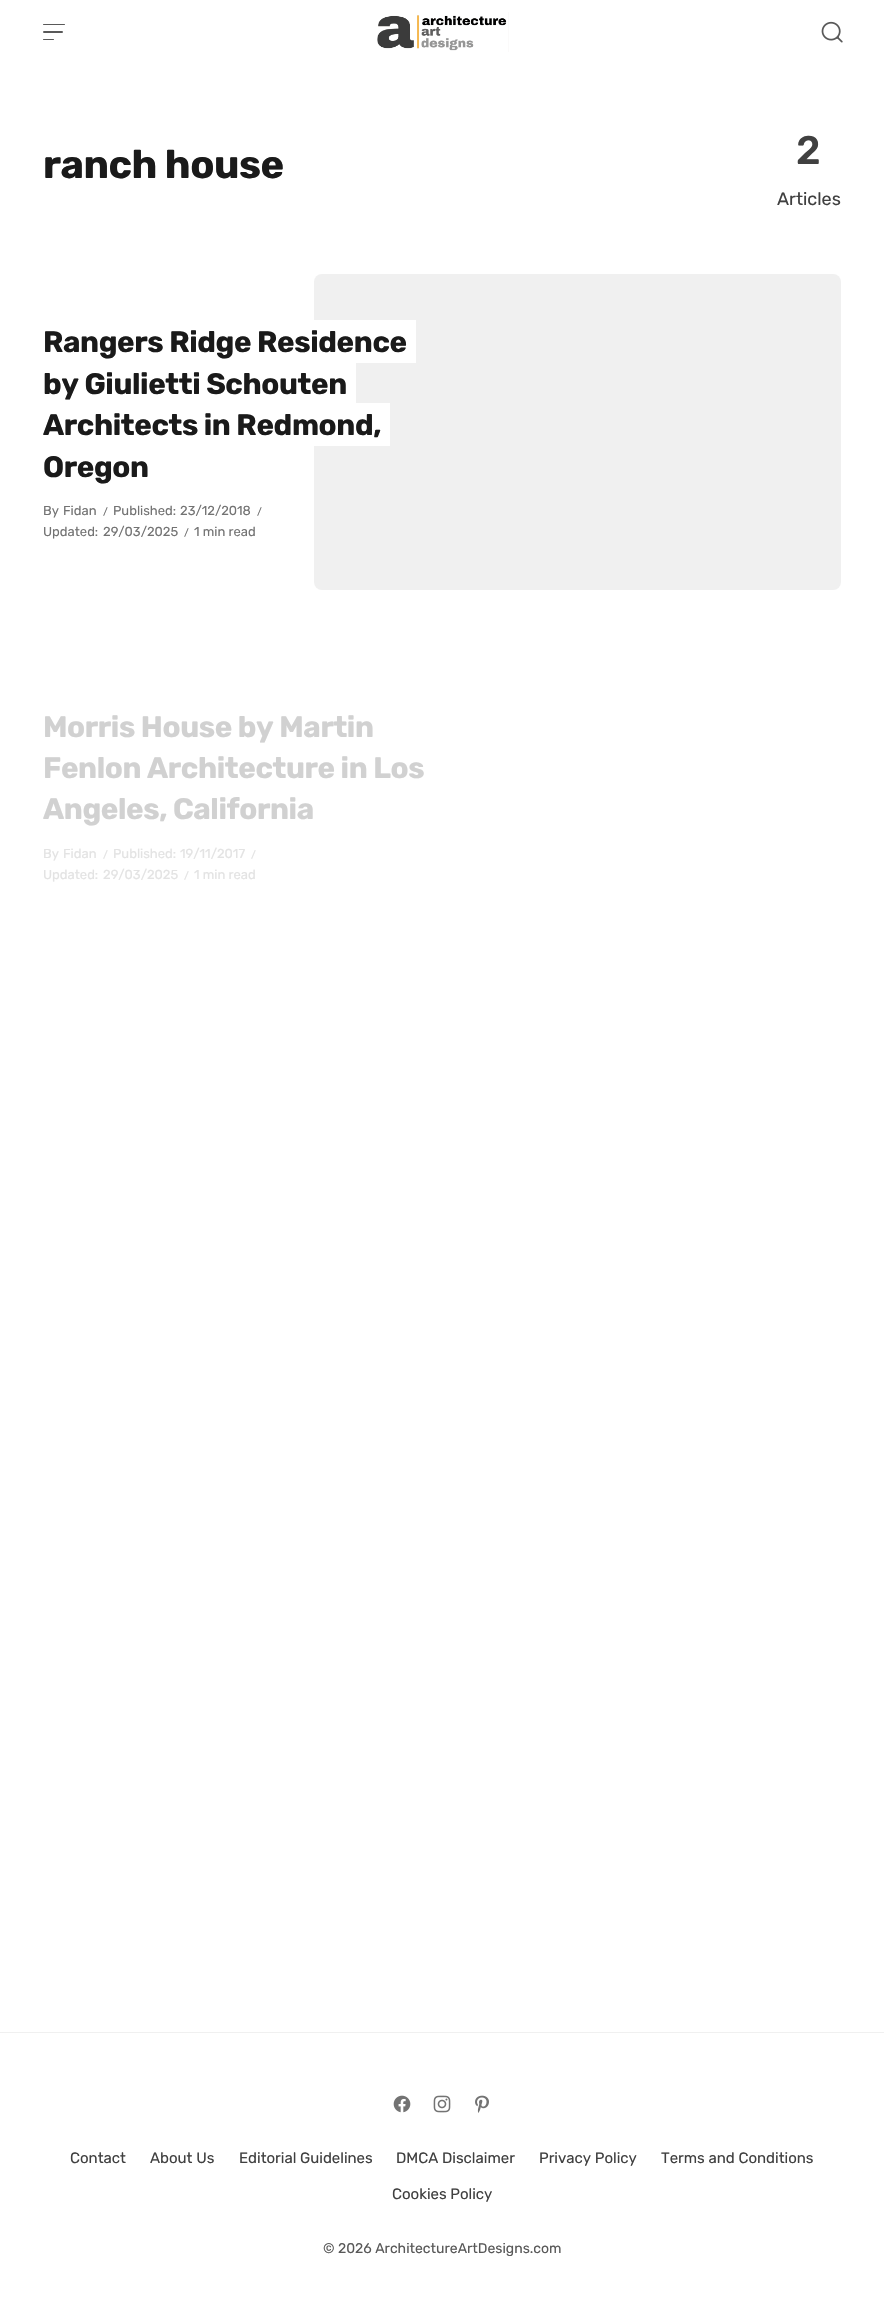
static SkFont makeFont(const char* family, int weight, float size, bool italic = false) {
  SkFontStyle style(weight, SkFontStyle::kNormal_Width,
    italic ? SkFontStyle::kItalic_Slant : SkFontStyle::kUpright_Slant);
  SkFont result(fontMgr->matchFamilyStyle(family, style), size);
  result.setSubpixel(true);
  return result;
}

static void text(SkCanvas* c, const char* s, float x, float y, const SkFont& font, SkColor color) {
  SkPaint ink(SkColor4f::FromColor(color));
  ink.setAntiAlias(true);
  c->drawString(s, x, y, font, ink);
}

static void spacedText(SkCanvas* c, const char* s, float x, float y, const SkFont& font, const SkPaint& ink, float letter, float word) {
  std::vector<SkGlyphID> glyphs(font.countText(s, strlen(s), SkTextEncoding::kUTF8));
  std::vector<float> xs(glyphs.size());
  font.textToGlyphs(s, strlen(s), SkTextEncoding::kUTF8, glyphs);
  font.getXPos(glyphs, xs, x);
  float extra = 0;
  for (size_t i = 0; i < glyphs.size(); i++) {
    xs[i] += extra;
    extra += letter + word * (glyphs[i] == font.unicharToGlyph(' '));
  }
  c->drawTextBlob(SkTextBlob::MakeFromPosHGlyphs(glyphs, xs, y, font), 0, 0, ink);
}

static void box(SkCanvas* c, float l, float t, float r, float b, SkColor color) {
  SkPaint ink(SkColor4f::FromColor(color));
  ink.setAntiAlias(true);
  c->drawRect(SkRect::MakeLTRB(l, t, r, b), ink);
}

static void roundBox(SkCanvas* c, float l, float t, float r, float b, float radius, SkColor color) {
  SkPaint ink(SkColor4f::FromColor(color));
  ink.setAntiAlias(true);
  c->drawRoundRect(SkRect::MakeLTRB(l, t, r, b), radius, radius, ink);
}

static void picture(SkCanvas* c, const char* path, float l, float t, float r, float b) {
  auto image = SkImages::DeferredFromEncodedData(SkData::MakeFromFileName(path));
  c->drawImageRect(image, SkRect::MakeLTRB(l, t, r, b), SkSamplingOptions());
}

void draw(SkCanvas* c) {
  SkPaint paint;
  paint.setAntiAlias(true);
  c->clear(0xffffffff);
  roundBox(c, 43, 24, 65, 25, 0.5f, 0xff595959);
  roundBox(c, 43, 31, 63, 33, 1, 0xff595959);
  roundBox(c, 43, 39, 54, 40, 0.5f, 0xff595959);
  picture(c, "img_01.png", 377, 12, 509, 52);
  picture(c, "img_02.png", 821, 21, 843, 43);
  SkFont face1 = makeFont("Rubik", 700, 39.75f);
  paint.setColor(0xff1a1a1a);
  spacedText(c, "ranch house", 43, 178, face1, paint, -0.5f, 0);
  SkFont face2 = makeFont("Rubik", 500, 39.75f);
  text(c, "2", 796, 164, face2, 0xff404040);
  SkFont face3 = makeFont("Rubik", 400, 18);
  text(c, "Articles", 777, 205, face3, 0xff404040);
  roundBox(c, 314, 274, 841, 590, 8, 0xfff0f0f0);
  paint.setColor(0xffffffff);
  c->drawPath(SkPathBuilder().moveTo(51, 320).lineTo(51, 324).lineTo(408, 324).lineTo(408, 355).lineTo(416, 355).lineTo(416, 320).close().detach(), paint);
  c->drawPath(SkPathBuilder().moveTo(51, 359).lineTo(51, 363).lineTo(416, 363).lineTo(416, 328).lineTo(408, 328).lineTo(408, 359).close().detach(), paint);
  box(c, 314, 324, 408, 359, 0xffffffff);
  SkFont face4 = makeFont("Rubik", 700, 29.6f);
  paint.setColor(0xff1a1a1a);
  spacedText(c, "Rangers Ridge Residence", 43, 352, face4, paint, -0.4f, 0);
  paint.setColor(0xffffffff);
  c->drawPath(SkPathBuilder().moveTo(51, 362).lineTo(51, 366).lineTo(348, 366).lineTo(348, 397).lineTo(356, 397).lineTo(356, 362).close().detach(), paint);
  c->drawPath(SkPathBuilder().moveTo(51, 401).lineTo(51, 405).lineTo(356, 405).lineTo(356, 370).lineTo(348, 370).lineTo(348, 401).close().detach(), paint);
  box(c, 314, 366, 348, 401, 0xffffffff);
  paint.setColor(0xff1a1a1a);
  spacedText(c, "by Giulietti Schouten", 43, 394, face4, paint, -0.4f, 0);
  paint.setColor(0xffffffff);
  c->drawPath(SkPathBuilder().moveTo(51, 403).lineTo(51, 407).lineTo(382, 407).lineTo(382, 438).lineTo(390, 438).lineTo(390, 403).close().detach(), paint);
  c->drawPath(SkPathBuilder().moveTo(51, 442).lineTo(51, 446).lineTo(390, 446).lineTo(390, 411).lineTo(382, 411).lineTo(382, 442).close().detach(), paint);
  box(c, 314, 407, 382, 442, 0xffffffff);
  paint.setColor(0xff1a1a1a);
  spacedText(c, "Architects in Redmond,", 43, 435, face4, paint, -0.4f, 0);
  spacedText(c, "Oregon", 43, 477, face4, paint, -0.4f, 0);
  SkFont face5 = makeFont("Rubik", 400, 13);
  text(c, "By", 43, 515, face5, 0xff737373);
  text(c, "Fidan", 63, 515, face5, 0xff737373);
  SkFont face6 = makeFont("Rubik", 400, 10);
  text(c, "/", 103, 515, face6, 0xff737373);
  text(c, "Published:", 113, 515, face5, 0xff737373);
  text(c, "23/12/2018", 180, 515, face5, 0xff737373);
  text(c, "/", 257, 515, face6, 0xff737373);
  text(c, "Updated:", 43, 536, face5, 0xff737373);
  text(c, "29/03/2025", 103, 536, face5, 0xff737373);
  text(c, "/", 184, 536, face6, 0xff737373);
  text(c, "1 min read", 194, 536, face5, 0xff737373);
  paint.setColor(0xffd1d1d1);
  spacedText(c, "Morris House by Martin", 43, 737, face4, paint, -0.4f, 0);
  spacedText(c, "Fenlon Architecture in Los", 43, 778, face4, paint, -0.4f, 0);
  spacedText(c, "Angeles, California", 43, 819, face4, paint, -0.4f, 0);
  text(c, "By", 43, 858, face5, 0xffe3e3e3);
  text(c, "Fidan", 63, 858, face5, 0xffe3e3e3);
  text(c, "/", 103, 858, face6, 0xffe3e3e3);
  text(c, "Published:", 113, 858, face5, 0xffe3e3e3);
  text(c, "19/11/2017", 180, 858, face5, 0xffe3e3e3);
  text(c, "/", 251, 858, face6, 0xffe3e3e3);
  text(c, "Updated:", 43, 879, face5, 0xffe3e3e3);
  text(c, "29/03/2025", 103, 879, face5, 0xffe3e3e3);
  text(c, "/", 184, 879, face6, 0xffe3e3e3);
  text(c, "1 min read", 194, 879, face5, 0xffe3e3e3);
  box(c, 0, 2032, 884, 2033, 0xfff0f0f0);
  picture(c, "img_03.png", 393, 2095, 411, 2113);
  picture(c, "img_04.png", 433, 2095, 451, 2113);
  picture(c, "img_05.png", 475, 2095, 489, 2113);
  SkFont face7 = makeFont("Rubik", 400, 15);
  text(c, "Contact", 70, 2163, face7, 0xff404040);
  text(c, "About Us", 150, 2163, face7, 0xff404040);
  text(c, "Editorial Guidelines", 239, 2163, face7, 0xff404040);
  text(c, "DMCA Disclaimer", 396, 2163, face7, 0xff404040);
  text(c, "Privacy Policy", 539, 2163, face7, 0xff404040);
  text(c, "Terms and Conditions", 661, 2163, face7, 0xff404040);
  text(c, "Cookies Policy", 392, 2199, face7, 0xff404040);
  SkFont face8 = makeFont("Rubik", 400, 14);
  text(c, "© 2026 ArchitectureArtDesigns.com", 323, 2253, face8, 0xff595959);
}
